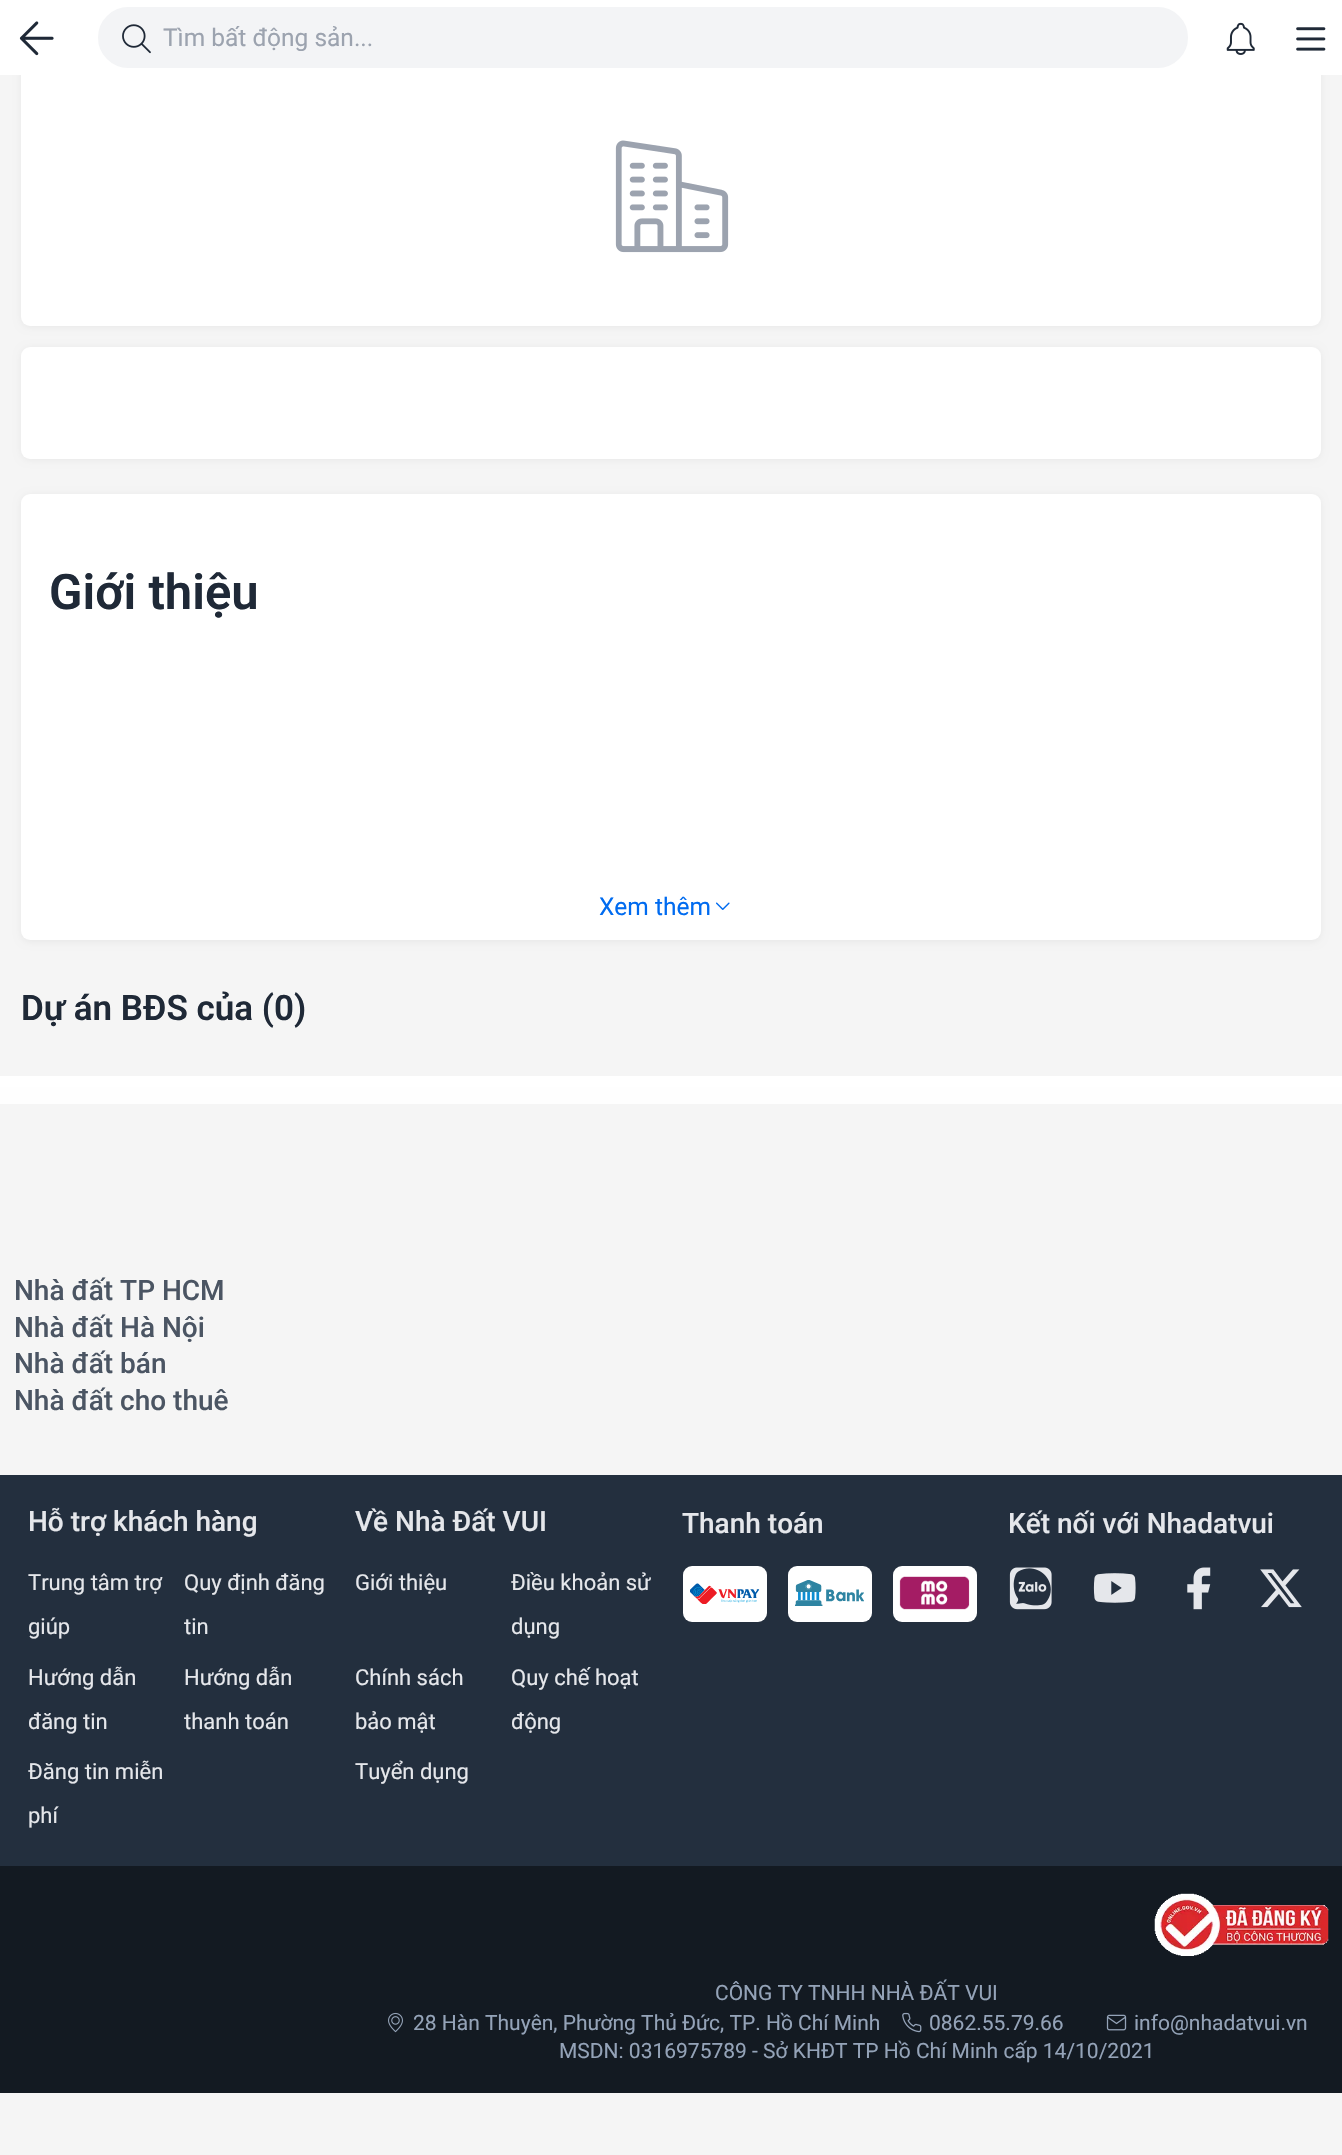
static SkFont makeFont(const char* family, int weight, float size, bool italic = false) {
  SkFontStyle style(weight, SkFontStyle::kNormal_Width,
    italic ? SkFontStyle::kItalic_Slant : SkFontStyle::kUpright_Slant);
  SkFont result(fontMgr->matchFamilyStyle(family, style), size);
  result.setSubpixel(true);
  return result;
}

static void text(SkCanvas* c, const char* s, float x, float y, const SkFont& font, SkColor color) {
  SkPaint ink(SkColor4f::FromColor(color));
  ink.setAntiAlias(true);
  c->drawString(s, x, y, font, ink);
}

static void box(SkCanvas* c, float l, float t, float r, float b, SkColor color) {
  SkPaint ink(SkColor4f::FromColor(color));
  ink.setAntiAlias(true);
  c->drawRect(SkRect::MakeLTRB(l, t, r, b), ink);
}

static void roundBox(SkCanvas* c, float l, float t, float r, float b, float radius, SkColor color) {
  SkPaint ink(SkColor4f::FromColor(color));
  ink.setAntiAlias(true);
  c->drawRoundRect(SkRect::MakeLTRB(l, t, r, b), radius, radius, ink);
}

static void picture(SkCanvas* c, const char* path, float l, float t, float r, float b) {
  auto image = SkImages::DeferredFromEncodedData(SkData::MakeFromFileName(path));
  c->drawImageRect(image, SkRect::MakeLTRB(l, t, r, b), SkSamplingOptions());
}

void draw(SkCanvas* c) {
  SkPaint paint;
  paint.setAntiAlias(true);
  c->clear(0xfff5f5f5);
  paint.setColor(0x0d000000);
  paint.setMaskFilter(SkMaskFilter::MakeBlur(kNormal_SkBlurStyle, 3.5f));
  c->drawRoundRect(SkRect::MakeLTRB(21, 65, 1321, 327), 9, 9, paint);
  paint.setMaskFilter(nullptr);
  roundBox(c, 21, 63, 1321, 326, 9, 0xffffffff);
  box(c, 0, 0, 1342, 75, 0xffffffff);
  picture(c, "img_01.png", 19, 21, 54, 56);
  paint.setColor(0xfff3f4f6);
  c->drawRoundRect(SkRect::MakeLTRB(99, 8, 1187, 67), 29.5f, 29.5f, paint);
  paint.setStyle(SkPaint::kStroke_Style);
  paint.setStrokeWidth(2);
  c->drawRoundRect(SkRect::MakeLTRB(99, 8, 1187, 67), 29.5f, 29.5f, paint);
  picture(c, "img_02.png", 122, 24, 151, 54);
  SkFont face1 = makeFont("Roboto", 400, 24.5f);
  text(c, "Tìm bất động sản...", 163, 46, face1, 0xff9ca3af);
  picture(c, "img_03.png", 1226, 22, 1255, 55);
  picture(c, "img_04.png", 1296, 27, 1326, 51);
  picture(c, "img_05.png", 615, 140, 729, 253);
  paint.setStyle(SkPaint::kFill_Style);
  paint.setColor(0x0d000000);
  paint.setMaskFilter(SkMaskFilter::MakeBlur(kNormal_SkBlurStyle, 3.5f));
  c->drawRoundRect(SkRect::MakeLTRB(21, 348, 1321, 460), 9, 9, paint);
  paint.setMaskFilter(nullptr);
  roundBox(c, 21, 347, 1321, 459, 9, 0xffffffff);
  paint.setMaskFilter(SkMaskFilter::MakeBlur(kNormal_SkBlurStyle, 3.5f));
  c->drawRoundRect(SkRect::MakeLTRB(21, 495, 1321, 942), 9, 9, paint);
  paint.setMaskFilter(nullptr);
  roundBox(c, 21, 494, 1321, 940, 9, 0xffffffff);
  SkFont face2 = makeFont("Roboto", 600, 49);
  text(c, "Giới thiệu", 49, 609, face2, 0xff1f2937);
  text(c, "Xem thêm", 599, 915, face1, 0xff006bf0);
  picture(c, "img_06.png", 716, 902, 730, 910);
  SkFont face3 = makeFont("Roboto", 600, 35);
  text(c, "Dự án BĐS của (0)", 21, 1020, face3, 0xff1f2937);
  {
    const SkColor colors[] = {0xffffffff, 0xfff5f5f5};
    const float stops[] = {0, 1};
    const SkPoint ends[] = {{671, 1076}, {671, 1300}};
    paint.setShader(SkGradientShader::MakeLinear(ends, colors, stops, 2, SkTileMode::kClamp));
    paint.setAlpha(255);
  }
  c->drawRect(SkRect::MakeLTRB(0, 1076, 1342, 1104), paint);
  SkFont face4 = makeFont("Roboto", 500, 28);
  text(c, "Nhà đất TP HCM", 14, 1300, face4, 0xff4b5563);
  text(c, "Nhà đất Hà Nội", 14, 1337, face4, 0xff4b5563);
  text(c, "Nhà đất bán", 14, 1373, face4, 0xff4b5563);
  text(c, "Nhà đất cho thuê", 14, 1410, face4, 0xff4b5563);
  box(c, 0, 1475, 1342, 1866, 0xff232f3e);
  text(c, "Hỗ trợ khách hàng", 28, 1531, face4, 0xffe5e7eb);
  SkFont face5 = makeFont("Roboto", 400, 22);
  text(c, "Trung tâm trợ", 28, 1590, face5, 0xffe5e7eb);
  text(c, "giúp", 28, 1634, face5, 0xffe5e7eb);
  text(c, "Quy định đăng", 184, 1590, face5, 0xffe5e7eb);
  text(c, "tin", 184, 1634, face5, 0xffe5e7eb);
  text(c, "Hướng dẫn", 28, 1685, face5, 0xffe5e7eb);
  text(c, "đăng tin", 28, 1729, face5, 0xffe5e7eb);
  text(c, "Hướng dẫn", 184, 1685, face5, 0xffe5e7eb);
  text(c, "thanh toán", 184, 1729, face5, 0xffe5e7eb);
  text(c, "Đăng tin miễn", 28, 1779, face5, 0xffe5e7eb);
  text(c, "phí", 28, 1823, face5, 0xffe5e7eb);
  text(c, "Về Nhà Đất VUI", 355, 1531, face4, 0xffe5e7eb);
  text(c, "Giới thiệu", 355, 1590, face5, 0xffe5e7eb);
  text(c, "Điều khoản sử", 511, 1590, face5, 0xffe5e7eb);
  text(c, "dụng", 511, 1634, face5, 0xffe5e7eb);
  text(c, "Chính sách", 355, 1685, face5, 0xffe5e7eb);
  text(c, "bảo mật", 355, 1729, face5, 0xffe5e7eb);
  text(c, "Quy chế hoạt", 511, 1685, face5, 0xffe5e7eb);
  text(c, "động", 511, 1729, face5, 0xffe5e7eb);
  text(c, "Tuyển dụng", 355, 1779, face5, 0xffe5e7eb);
  text(c, "Thanh toán", 682, 1533, face4, 0xffe5e7eb);
  roundBox(c, 683, 1566, 767, 1622, 9, 0xffffffff);
  picture(c, "img_07.png", 690, 1583, 760, 1604);
  roundBox(c, 788, 1566, 872, 1622, 9, 0xffffffff);
  picture(c, "img_08.png", 795, 1580, 864, 1606);
  roundBox(c, 893, 1566, 977, 1622, 9, 0xffffffff);
  picture(c, "img_09.png", 899, 1576, 970, 1610);
  text(c, "Kết nối với Nhadatvui", 1008, 1533, face4, 0xffe5e7eb);
  picture(c, "img_10.png", 1009, 1567, 1052, 1610);
  picture(c, "img_11.png", 1093, 1573, 1136, 1603);
  picture(c, "img_12.png", 1187, 1567, 1211, 1610);
  picture(c, "img_13.png", 1260, 1569, 1302, 1608);
  box(c, 0, 1866, 1342, 2093, 0xff131a22);
  picture(c, "img_14.png", 1154, 1893, 1329, 1956);
  SkFont face6 = makeFont("Roboto", 400, 21);
  text(c, "CÔNG TY TNHH NHÀ ĐẤT VUI", 715, 2000, face6, 0xff94a3b8);
  picture(c, "img_15.png", 388, 2012, 403, 2033);
  text(c, "28 Hàn Thuyên, Phường Thủ Đức, TP. Hồ Chí Minh", 413, 2030, face6, 0xff94a3b8);
  picture(c, "img_16.png", 902, 2012, 922, 2033);
  text(c, "0862.55.79.66", 929, 2030, face6, 0xff94a3b8);
  picture(c, "img_17.png", 1106, 2014, 1127, 2031);
  text(c, "info@nhadatvui.vn", 1134, 2030, face6, 0xff94a3b8);
  text(c, "MSDN: 0316975789 - Sở KHĐT TP Hồ Chí Minh cấp 14/10/2021", 559, 2058, face6, 0xff94a3b8);
}
